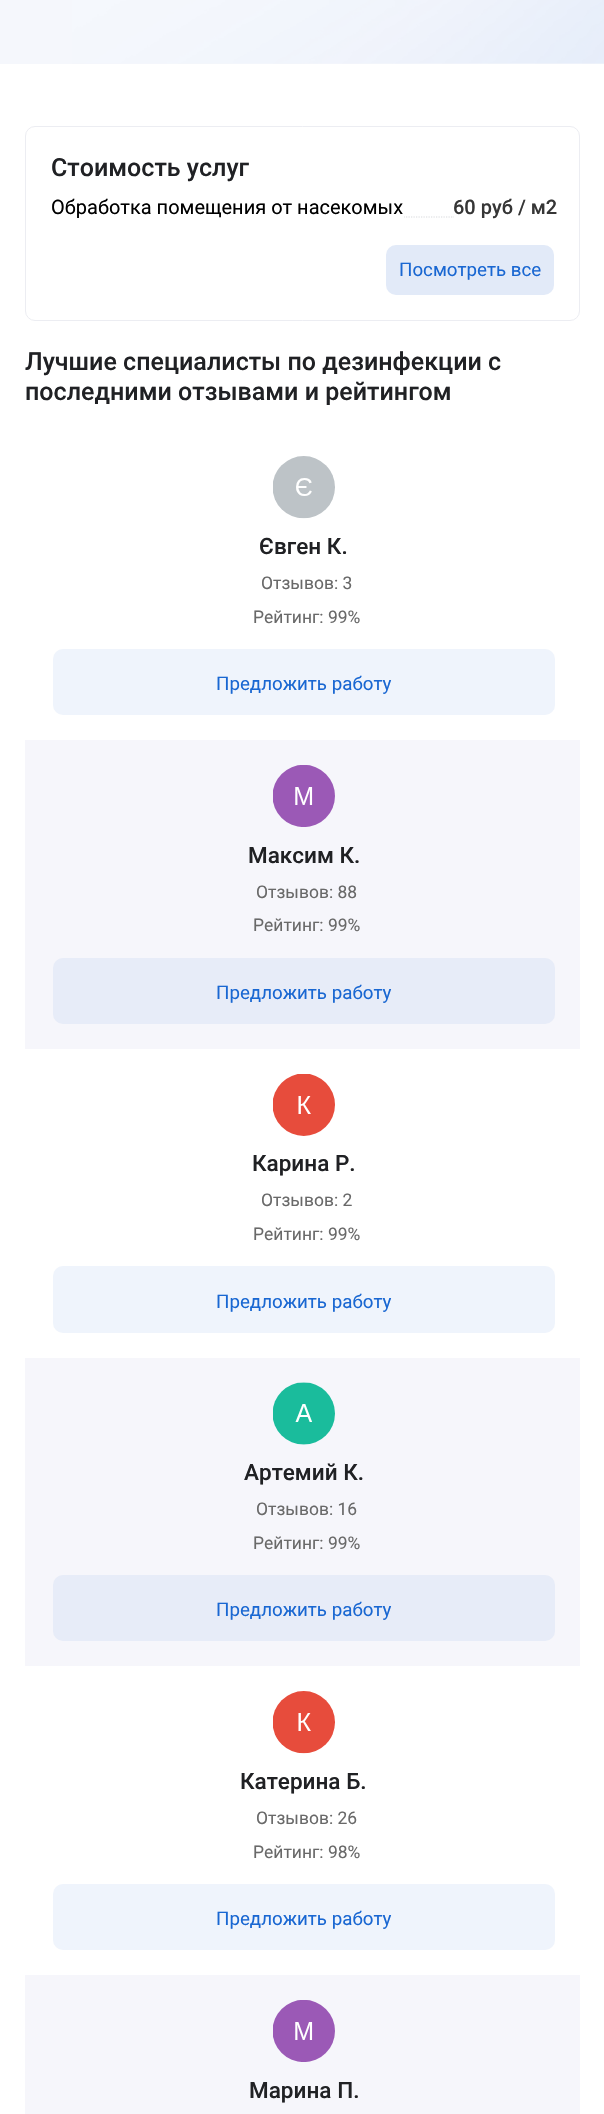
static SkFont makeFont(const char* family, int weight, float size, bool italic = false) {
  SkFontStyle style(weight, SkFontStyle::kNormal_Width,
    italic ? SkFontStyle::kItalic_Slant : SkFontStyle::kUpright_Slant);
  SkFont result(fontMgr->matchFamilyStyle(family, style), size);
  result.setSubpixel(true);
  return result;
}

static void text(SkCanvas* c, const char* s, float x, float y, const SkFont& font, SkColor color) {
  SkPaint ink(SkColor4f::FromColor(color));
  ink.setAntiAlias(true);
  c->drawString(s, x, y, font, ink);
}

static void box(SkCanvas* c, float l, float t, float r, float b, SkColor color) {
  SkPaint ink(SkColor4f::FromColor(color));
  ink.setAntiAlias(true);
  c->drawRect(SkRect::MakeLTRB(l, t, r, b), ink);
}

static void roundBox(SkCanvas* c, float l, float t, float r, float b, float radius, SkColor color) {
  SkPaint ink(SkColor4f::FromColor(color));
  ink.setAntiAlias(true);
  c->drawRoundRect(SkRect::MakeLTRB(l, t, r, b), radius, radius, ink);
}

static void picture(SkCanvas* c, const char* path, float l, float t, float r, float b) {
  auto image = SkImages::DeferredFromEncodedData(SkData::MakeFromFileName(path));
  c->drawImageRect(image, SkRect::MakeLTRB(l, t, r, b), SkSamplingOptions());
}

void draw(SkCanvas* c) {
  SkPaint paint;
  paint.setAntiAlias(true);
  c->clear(0xffffffff);
  box(c, 0, 0, 604, 64, 0xfff5f7fc);
  picture(c, "img_01.png", 72, 0, 604, 64);
  paint.setStyle(SkPaint::kStroke_Style);
  paint.setStrokeWidth(1);
  paint.setColor(0xffecedf2);
  c->drawRoundRect(SkRect::MakeLTRB(25.5f, 126.5f, 579.5f, 320.5f), 9.5f, 9.5f, paint);
  SkFont face1 = makeFont("Roboto", 500, 25);
  text(c, "Стоимость услуг", 51, 176, face1, 0xff202124);
  paint.setStrokeWidth(1.2f);
  paint.setColor(0xffd8dadd);
  paint.setPathEffect(SkDashPathEffect::Make({{1.25f, 1.25f}}, 0));
  c->drawPath(SkPathBuilder().moveTo(51, 217).lineTo(557.5f, 217).detach(), paint);
  paint.setPathEffect(nullptr);
  box(c, 51, 216, 404, 218, 0xffffffff);
  SkFont face2 = makeFont("Roboto", 400, 20);
  text(c, "Обработка помещения от насекомых", 51, 214, face2, 0xff000000);
  box(c, 454, 216, 558, 218, 0xffffffff);
  SkFont face3 = makeFont("Roboto", 500, 20);
  text(c, "60 руб / м2", 453, 214, face3, 0xff363636);
  roundBox(c, 386, 245, 554, 295, 10, 0xffe2eaf8);
  SkFont face4 = makeFont("Roboto", 400, 18.75f);
  text(c, "Посмотреть все", 399, 276, face4, 0xff1967d2);
  text(c, "Лучшие специалисты по дезинфекции с", 25, 370, face1, 0xff202124);
  text(c, "последними отзывами и рейтингом", 25, 400, face1, 0xff202124);
  picture(c, "img_02.png", 273, 456, 335, 519);
  SkFont face5 = makeFont("Roboto", 500, 22.5f);
  text(c, "Євген К.", 259, 554, face5, 0xff202124);
  SkFont face6 = makeFont("Roboto", 400, 17.5f);
  text(c, "Отзывов: 3", 261, 589, face6, 0xff696969);
  text(c, "Рейтинг: 99%", 253, 623, face6, 0xff696969);
  roundBox(c, 53, 649, 555, 715, 10, 0xffeff4fc);
  text(c, "Предложить работу", 216, 690, face4, 0xff1967d2);
  box(c, 25, 740, 580, 1049, 0xfff6f6fb);
  picture(c, "img_03.png", 273, 765, 335, 827);
  text(c, "Максим К.", 248, 863, face5, 0xff202124);
  text(c, "Отзывов: 88", 256, 898, face6, 0xff696969);
  text(c, "Рейтинг: 99%", 253, 931, face6, 0xff696969);
  roundBox(c, 53, 958, 555, 1024, 10, 0xffe7ecf8);
  text(c, "Предложить работу", 216, 999, face4, 0xff1967d2);
  picture(c, "img_04.png", 273, 1074, 335, 1136);
  text(c, "Карина Р.", 252, 1171, face5, 0xff202124);
  text(c, "Отзывов: 2", 261, 1206, face6, 0xff696969);
  text(c, "Рейтинг: 99%", 253, 1240, face6, 0xff696969);
  roundBox(c, 53, 1266, 555, 1333, 10, 0xffeff4fc);
  text(c, "Предложить работу", 216, 1308, face4, 0xff1967d2);
  box(c, 25, 1358, 580, 1666, 0xfff6f6fb);
  picture(c, "img_05.png", 273, 1382, 335, 1445);
  text(c, "Артемий К.", 244, 1480, face5, 0xff202124);
  text(c, "Отзывов: 16", 256, 1515, face6, 0xff696969);
  text(c, "Рейтинг: 99%", 253, 1549, face6, 0xff696969);
  roundBox(c, 53, 1575, 555, 1641, 10, 0xffe7ecf8);
  text(c, "Предложить работу", 216, 1616, face4, 0xff1967d2);
  picture(c, "img_06.png", 273, 1691, 335, 1754);
  text(c, "Катерина Б.", 240, 1789, face5, 0xff202124);
  text(c, "Отзывов: 26", 256, 1824, face6, 0xff696969);
  text(c, "Рейтинг: 98%", 253, 1858, face6, 0xff696969);
  roundBox(c, 53, 1884, 555, 1950, 10, 0xffeff4fc);
  text(c, "Предложить работу", 216, 1925, face4, 0xff1967d2);
  box(c, 25, 1975, 580, 2114, 0xfff6f6fb);
  picture(c, "img_03.png", 273, 2000, 335, 2062);
  text(c, "Марина П.", 249, 2098, face5, 0xff202124);
}
